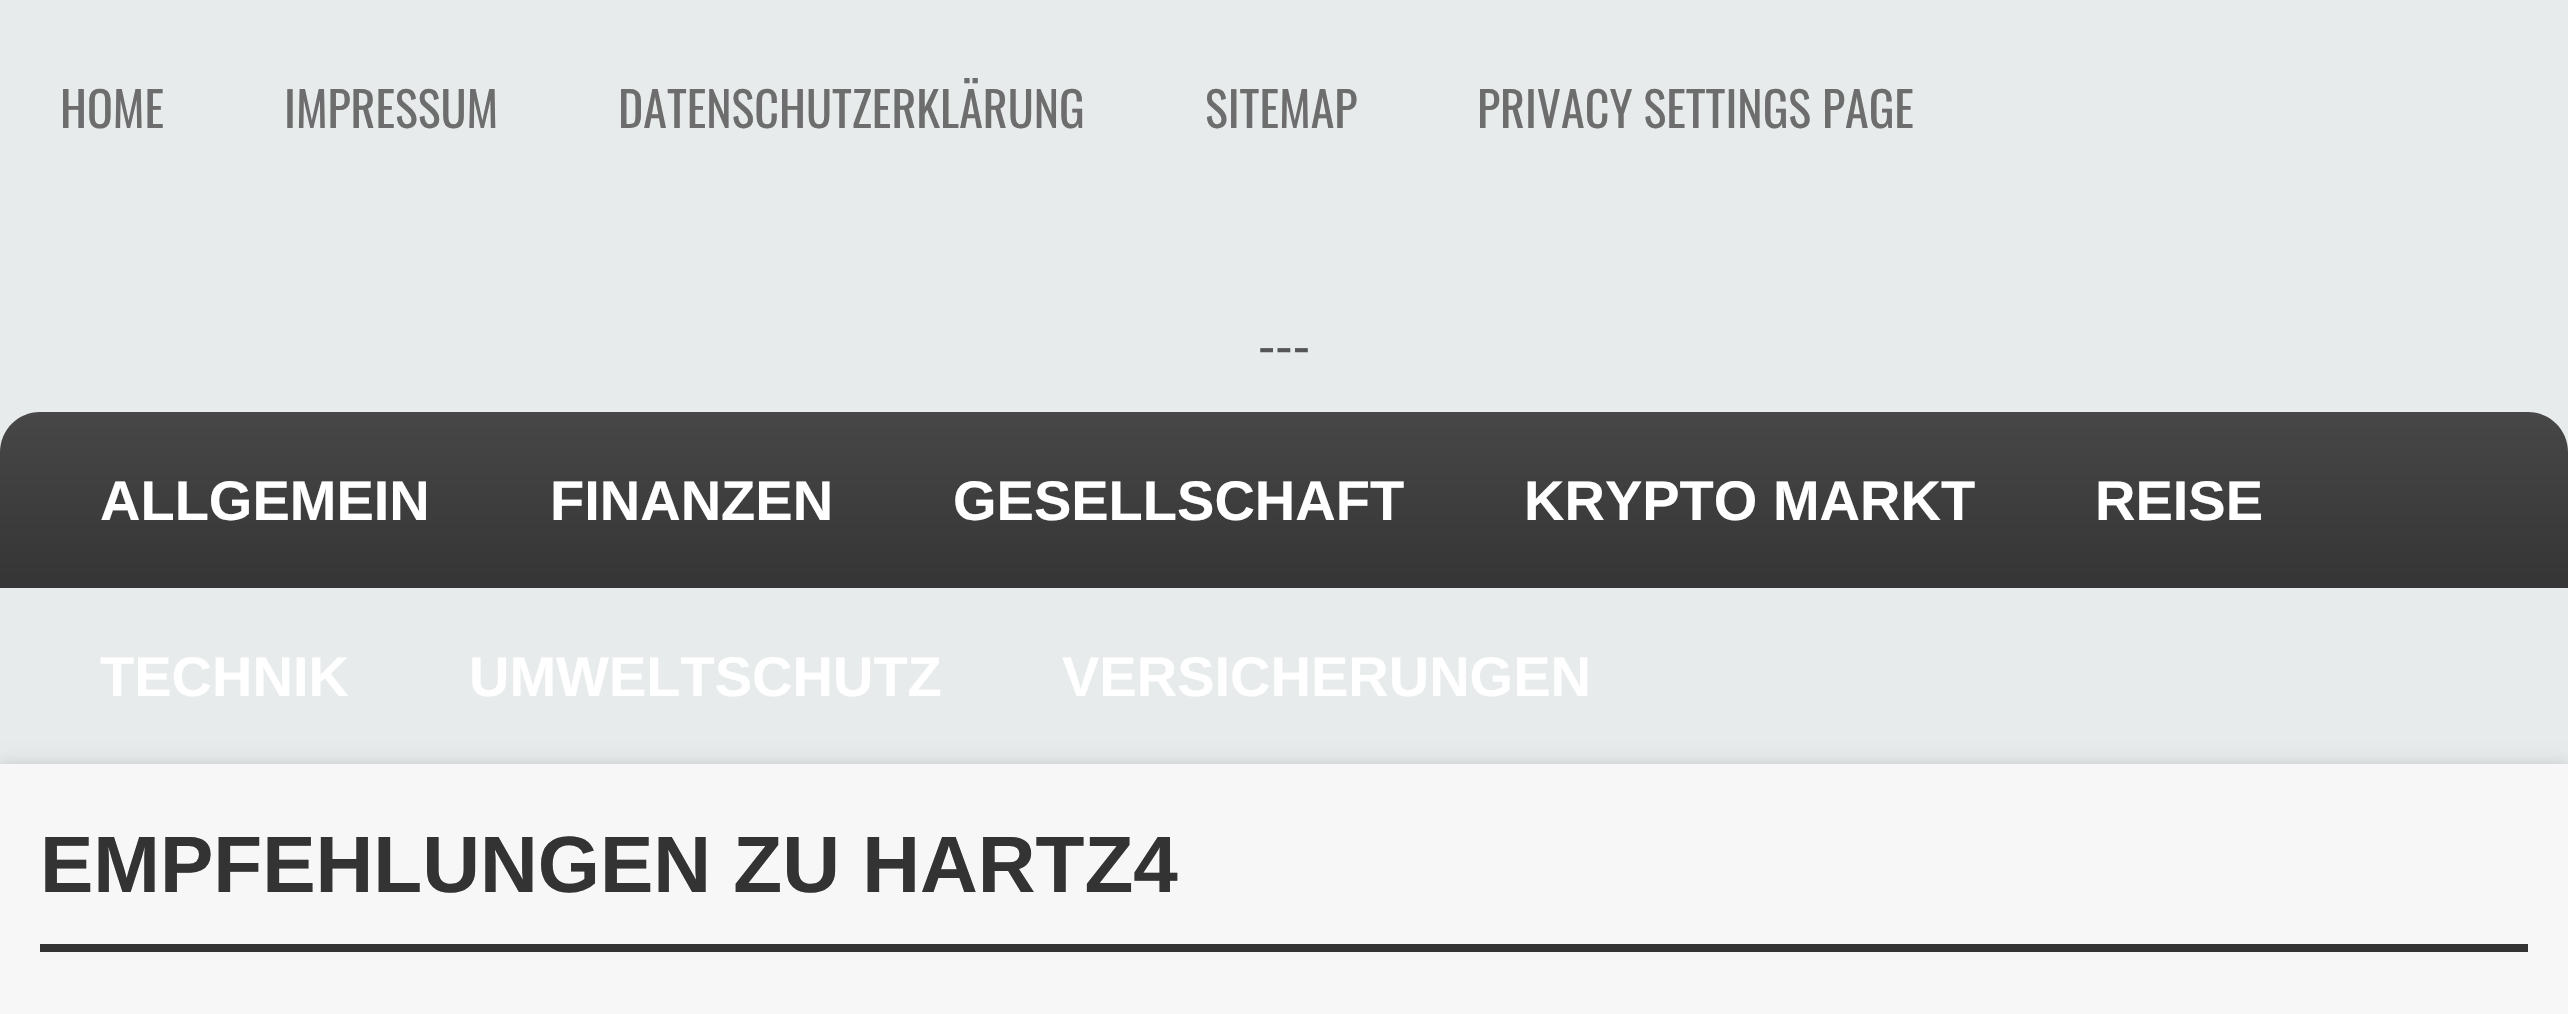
static SkFont makeFont(const char* family, int weight, float size, bool italic = false) {
  SkFontStyle style(weight, SkFontStyle::kNormal_Width,
    italic ? SkFontStyle::kItalic_Slant : SkFontStyle::kUpright_Slant);
  SkFont result(fontMgr->matchFamilyStyle(family, style), size);
  result.setSubpixel(true);
  return result;
}

static void text(SkCanvas* c, const char* s, float x, float y, const SkFont& font, SkColor color) {
  SkPaint ink(SkColor4f::FromColor(color));
  ink.setAntiAlias(true);
  c->drawString(s, x, y, font, ink);
}

static void box(SkCanvas* c, float l, float t, float r, float b, SkColor color) {
  SkPaint ink(SkColor4f::FromColor(color));
  ink.setAntiAlias(true);
  c->drawRect(SkRect::MakeLTRB(l, t, r, b), ink);
}

void draw(SkCanvas* c) {
  SkPaint paint;
  paint.setAntiAlias(true);
  c->clear(0xffe8ebec);
  SkFont face1 = makeFont("Oswald", 400, 48);
  text(c, "HOME", 60, 128, face1, 0xff6d6d6d);
  text(c, "IMPRESSUM", 284, 128, face1, 0xff6d6d6d);
  text(c, "DATENSCHUTZERKLÄRUNG", 618, 128, face1, 0xff6d6d6d);
  text(c, "SITEMAP", 1205, 128, face1, 0xff6d6d6d);
  text(c, "PRIVACY SETTINGS PAGE", 1477, 128, face1, 0xff6d6d6d);
  SkFont face2 = makeFont("Liberation Sans", 400, 52);
  text(c, "---", 1258, 364, face2, 0xff555555);
  {
    const SkColor colors[] = {0xff474747, 0xff353535};
    const float stops[] = {0, 1};
    const SkPoint ends[] = {{1284, 412}, {1284, 588}};
    paint.setShader(SkGradientShader::MakeLinear(ends, colors, stops, 2, SkTileMode::kClamp));
    paint.setAlpha(255);
  }
  c->drawPath(SkPathBuilder().moveTo(40, 412).lineTo(2528, 412).cubicTo(2550, 412, 2568, 430, 2568, 452).lineTo(2568, 588).lineTo(0, 588).lineTo(0, 452).cubicTo(0, 430, 18, 412, 40, 412).close().detach(), paint);
  SkFont face3 = makeFont("Liberation Sans", 700, 56);
  text(c, "ALLGEMEIN", 100, 520, face3, 0xffffffff);
  text(c, "FINANZEN", 550, 520, face3, 0xffffffff);
  text(c, "GESELLSCHAFT", 953, 520, face3, 0xffffffff);
  text(c, "KRYPTO MARKT", 1524, 520, face3, 0xffffffff);
  text(c, "REISE", 2095, 520, face3, 0xffffffff);
  text(c, "TECHNIK", 100, 696, face3, 0xffffffff);
  text(c, "UMWELTSCHUTZ", 469, 696, face3, 0xffffffff);
  text(c, "VERSICHERUNGEN", 1062, 696, face3, 0xffffffff);
  paint.setShader(nullptr);
  paint.setColor(0x26000000);
  paint.setMaskFilter(SkMaskFilter::MakeBlur(kNormal_SkBlurStyle, 8));
  c->drawRect(SkRect::MakeLTRB(0, 764, 2568, 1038), paint);
  paint.setMaskFilter(nullptr);
  box(c, 0, 764, 2568, 1014, 0xfff7f7f7);
  box(c, 40, 944, 2528, 952, 0xff333333);
  SkFont face4 = makeFont("Liberation Sans", 700, 80);
  text(c, "EMPFEHLUNGEN ZU HARTZ4", 40, 892, face4, 0xff333333);
}
